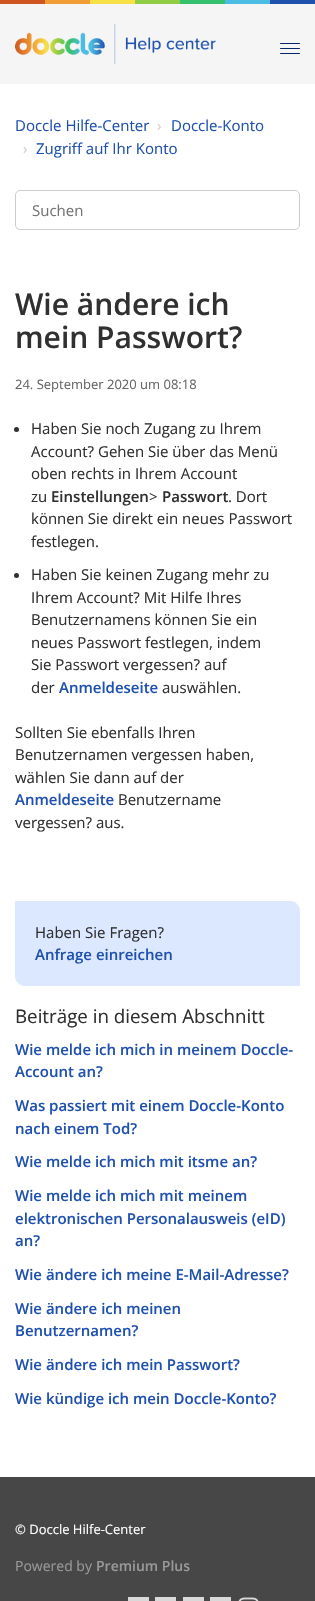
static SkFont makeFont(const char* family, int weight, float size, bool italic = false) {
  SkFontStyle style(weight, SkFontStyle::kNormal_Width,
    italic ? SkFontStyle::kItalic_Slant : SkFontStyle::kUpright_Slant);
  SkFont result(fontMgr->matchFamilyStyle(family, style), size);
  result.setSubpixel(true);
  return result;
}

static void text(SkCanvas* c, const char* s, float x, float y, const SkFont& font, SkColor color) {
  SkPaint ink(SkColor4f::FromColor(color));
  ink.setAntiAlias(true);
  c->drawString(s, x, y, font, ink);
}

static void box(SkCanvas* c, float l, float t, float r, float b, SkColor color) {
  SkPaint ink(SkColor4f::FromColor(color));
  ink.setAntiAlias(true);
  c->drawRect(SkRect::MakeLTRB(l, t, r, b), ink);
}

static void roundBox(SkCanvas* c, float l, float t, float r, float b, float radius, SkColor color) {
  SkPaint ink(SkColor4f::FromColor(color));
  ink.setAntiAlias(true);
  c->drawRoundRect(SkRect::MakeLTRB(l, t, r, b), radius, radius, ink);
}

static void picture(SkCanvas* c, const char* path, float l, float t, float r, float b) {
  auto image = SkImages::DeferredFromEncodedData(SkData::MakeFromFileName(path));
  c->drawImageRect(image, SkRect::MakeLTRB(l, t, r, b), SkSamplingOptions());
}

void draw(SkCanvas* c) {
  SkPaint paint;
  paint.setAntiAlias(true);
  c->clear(0xffffffff);
  box(c, 0, 4, 315, 84, 0xfff5f5f6);
  picture(c, "img_01.png", 0, 0, 315, 4);
  picture(c, "img_02.png", 15, 24, 216, 64);
  roundBox(c, 280, 48, 300, 49, 0.5f, 0xff042668);
  roundBox(c, 280, 43, 300, 44, 0.5f, 0xff042668);
  roundBox(c, 280, 53, 300, 54, 0.5f, 0xff042668);
  SkFont face1 = makeFont("Open Sans", 400, 15);
  text(c, "Doccle Hilfe-Center", 15, 131, face1, 0xff1f51af);
  text(c, "›", 157, 131, face1, 0xffcccccc);
  text(c, "Doccle-Konto", 171, 131, face1, 0xff1f51af);
  text(c, "›", 23, 154, face1, 0xffcccccc);
  text(c, "Zugriff auf Ihr Konto", 36, 154, face1, 0xff1f51af);
  paint.setStyle(SkPaint::kStroke_Style);
  paint.setStrokeWidth(1);
  paint.setColor(0xffcccccc);
  c->drawRoundRect(SkRect::MakeLTRB(15.5f, 190.5f, 299.5f, 229.5f), 4.5f, 4.5f, paint);
  text(c, "Suchen", 32, 216, face1, 0xff757575);
  SkFont face2 = makeFont("Open Sans", 600, 30);
  text(c, "Wie ändere ich", 15, 315, face2, 0xff303030);
  text(c, "mein Passwort?", 15, 348, face2, 0xff303030);
  SkFont face3 = makeFont("Open Sans", 400, 13);
  text(c, "24. September 2020 um 08:18", 15, 389, face3, 0xff666666);
  paint.setStyle(SkPaint::kFill_Style);
  paint.setColor(0xff303030);
  c->drawCircle(16.5f, 429.5f, 2.5f, paint);
  text(c, "Haben Sie noch Zugang zu Ihrem", 31, 434, face1, 0xff303030);
  text(c, "Account? Gehen Sie über das Menü", 31, 457, face1, 0xff303030);
  text(c, "oben rechts in Ihrem Account", 31, 479, face1, 0xff303030);
  text(c, "zu", 31, 502, face1, 0xff303030);
  SkFont face4 = makeFont("Open Sans", 600, 15);
  text(c, "Einstellungen", 51, 502, face4, 0xff303030);
  text(c, ">", 149, 502, face1, 0xff303030);
  text(c, "Passwort", 162, 502, face4, 0xff303030);
  text(c, ". Dort", 228, 502, face1, 0xff303030);
  text(c, "können Sie direkt ein neues Passwort", 31, 524, face1, 0xff303030);
  text(c, "festlegen.", 31, 547, face1, 0xff303030);
  c->drawCircle(16.5f, 575.5f, 2.5f, paint);
  text(c, "Haben Sie keinen Zugang mehr zu", 31, 580, face1, 0xff303030);
  text(c, "Ihrem Account? Mit Hilfe Ihres", 31, 603, face1, 0xff303030);
  text(c, "Benutzernamens können Sie ein", 31, 625, face1, 0xff303030);
  text(c, "neues Passwort festlegen, indem", 31, 648, face1, 0xff303030);
  text(c, "Sie Passwort vergessen? auf", 31, 670, face1, 0xff303030);
  text(c, "der", 31, 693, face1, 0xff303030);
  text(c, "Anmeldeseite", 59, 693, face4, 0xff1f51af);
  text(c, "auswählen.", 162, 693, face1, 0xff303030);
  text(c, "Sollten Sie ebenfalls Ihren", 15, 738, face1, 0xff303030);
  text(c, "Benutzernamen vergessen haben,", 15, 760, face1, 0xff303030);
  text(c, "wählen Sie dann auf der", 15, 783, face1, 0xff303030);
  text(c, "Anmeldeseite", 15, 805, face4, 0xff1f51af);
  text(c, "Benutzername", 118, 805, face1, 0xff303030);
  text(c, "vergessen? aus.", 15, 828, face1, 0xff303030);
  paint.setColor(0xffdce8ff);
  c->drawPath(SkPathBuilder().moveTo(15, 901).lineTo(290, 901).cubicTo(295.5f, 901, 300, 905.5f, 300, 911).lineTo(300, 986).lineTo(25, 986).cubicTo(19.5f, 986, 15, 981.5f, 15, 976).close().detach(), paint);
  text(c, "Haben Sie Fragen?", 35, 938, face1, 0xff303030);
  text(c, "Anfrage einreichen", 35, 960, face4, 0xff1f51af);
  SkFont face5 = makeFont("Open Sans", 400, 18.75f);
  text(c, "Beiträge in diesem Abschnitt", 15, 1023, face5, 0xff303030);
  text(c, "Wie melde ich mich in meinem Doccle-", 15, 1055, face4, 0xff1f51af);
  text(c, "Account an?", 15, 1077, face4, 0xff1f51af);
  text(c, "Was passiert mit einem Doccle-Konto", 15, 1111, face4, 0xff1f51af);
  text(c, "nach einem Tod?", 15, 1134, face4, 0xff1f51af);
  text(c, "Wie melde ich mich mit itsme an?", 15, 1167, face4, 0xff1f51af);
  text(c, "Wie melde ich mich mit meinem", 15, 1201, face4, 0xff1f51af);
  text(c, "elektronischen Personalausweis (eID)", 15, 1224, face4, 0xff1f51af);
  text(c, "an?", 15, 1246, face4, 0xff1f51af);
  text(c, "Wie ändere ich meine E-Mail-Adresse?", 15, 1280, face4, 0xff1f51af);
  text(c, "Wie ändere ich meinen", 15, 1314, face4, 0xff1f51af);
  text(c, "Benutzernamen?", 15, 1336, face4, 0xff1f51af);
  text(c, "Wie ändere ich mein Passwort?", 15, 1370, face4, 0xff1f51af);
  text(c, "Wie kündige ich mein Doccle-Konto?", 15, 1404, face4, 0xff1f51af);
  box(c, 0, 1477, 315, 1601, 0xff474747);
  text(c, "© Doccle Hilfe-Center", 15, 1534, face3, 0xffffffff);
  SkFont face6 = makeFont("Open Sans", 400, 14);
  text(c, "Powered by", 15, 1571, face6, 0xff999999);
  SkFont face7 = makeFont("Open Sans", 600, 14);
  text(c, "Premium Plus", 96, 1571, face7, 0xff999999);
  box(c, 128, 1597, 149, 1601, 0xffd9d9d9);
  box(c, 155, 1597, 176, 1601, 0xffd9d9d9);
  box(c, 183, 1597, 204, 1601, 0xffd9d9d9);
  box(c, 210, 1597, 231, 1601, 0xffd9d9d9);
  picture(c, "img_03.png", 238, 1597, 259, 1601);
}
